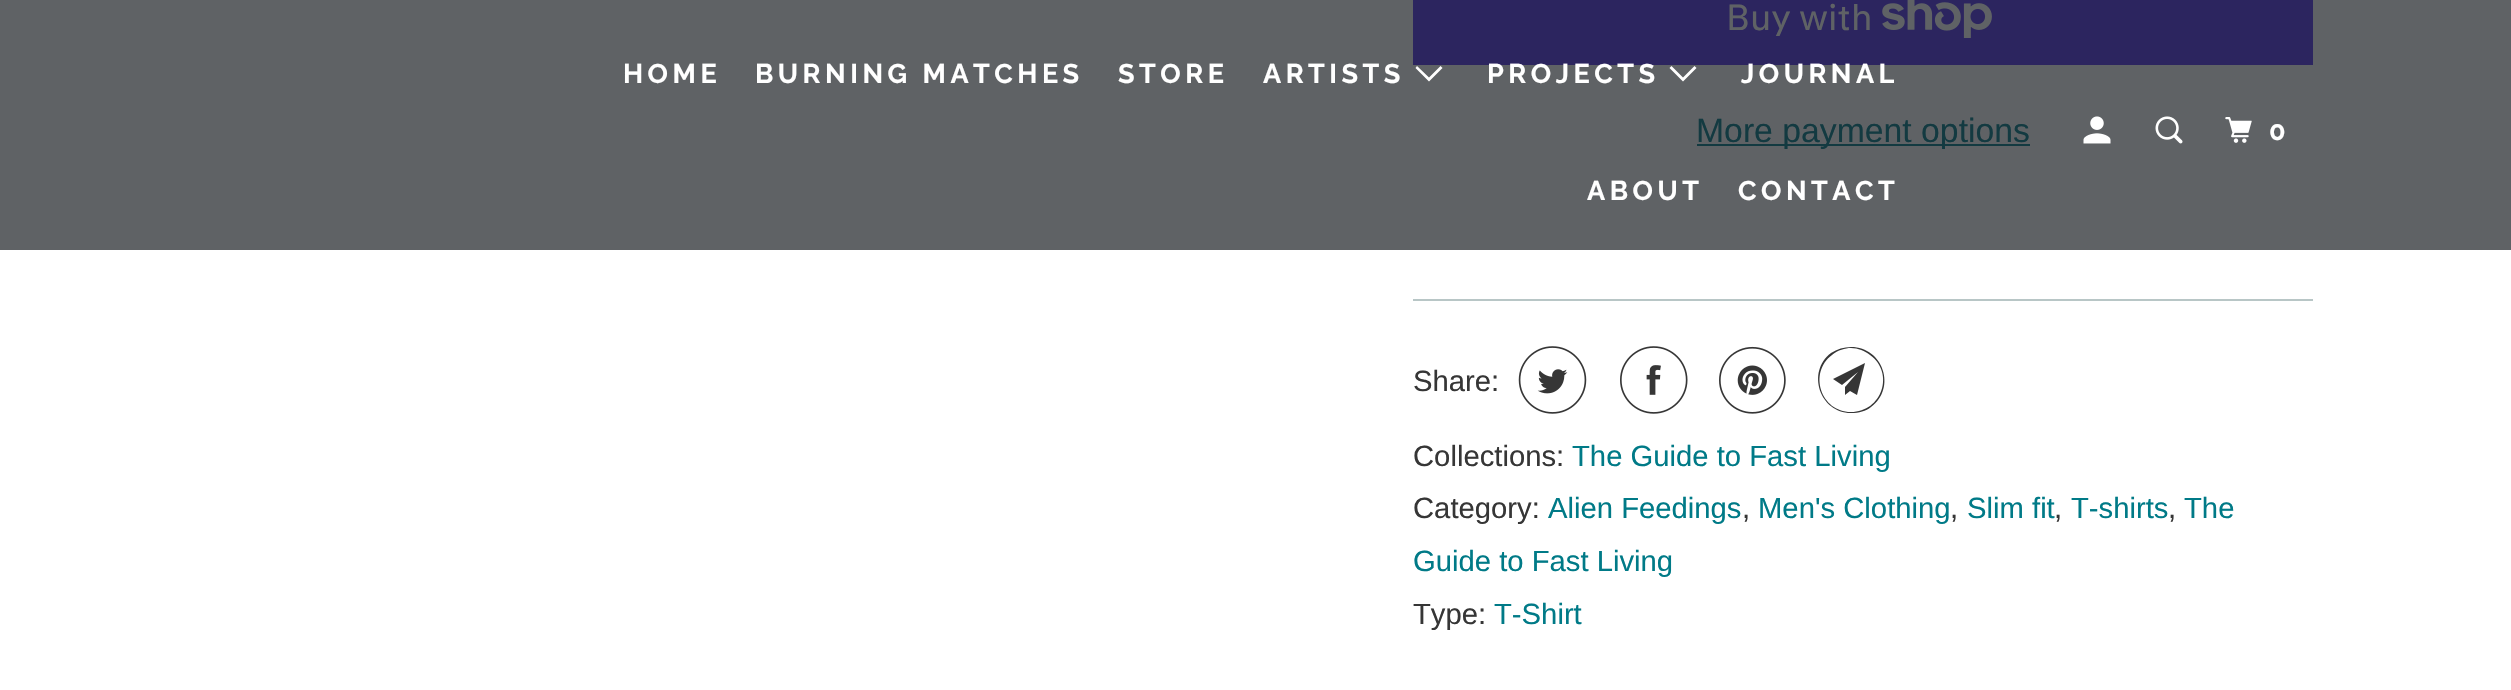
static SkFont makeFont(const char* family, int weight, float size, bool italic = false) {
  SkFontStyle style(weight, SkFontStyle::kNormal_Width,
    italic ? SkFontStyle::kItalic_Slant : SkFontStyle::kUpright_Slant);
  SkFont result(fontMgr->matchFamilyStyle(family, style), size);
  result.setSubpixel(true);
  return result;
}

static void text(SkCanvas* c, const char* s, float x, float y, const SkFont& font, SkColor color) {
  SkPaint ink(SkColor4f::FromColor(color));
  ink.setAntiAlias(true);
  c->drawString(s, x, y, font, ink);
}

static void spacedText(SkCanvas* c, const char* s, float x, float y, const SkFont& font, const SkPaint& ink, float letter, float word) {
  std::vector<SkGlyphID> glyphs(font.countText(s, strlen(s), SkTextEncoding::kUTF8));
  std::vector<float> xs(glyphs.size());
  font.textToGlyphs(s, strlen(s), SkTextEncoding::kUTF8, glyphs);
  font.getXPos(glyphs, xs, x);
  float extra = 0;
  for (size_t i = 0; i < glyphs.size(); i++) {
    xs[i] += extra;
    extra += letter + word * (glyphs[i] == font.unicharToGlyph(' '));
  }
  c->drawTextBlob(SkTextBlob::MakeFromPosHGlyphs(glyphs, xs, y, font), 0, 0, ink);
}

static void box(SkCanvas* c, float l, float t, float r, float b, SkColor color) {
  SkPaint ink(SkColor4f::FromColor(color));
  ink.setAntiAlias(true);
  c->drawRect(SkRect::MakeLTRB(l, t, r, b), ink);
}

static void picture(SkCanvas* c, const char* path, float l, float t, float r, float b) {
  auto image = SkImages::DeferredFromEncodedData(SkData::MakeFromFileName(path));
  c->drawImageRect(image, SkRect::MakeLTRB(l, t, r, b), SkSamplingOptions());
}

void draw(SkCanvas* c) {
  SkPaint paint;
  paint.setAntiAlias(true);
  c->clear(0xffffffff);
  box(c, 0, 0, 2511, 250, 0xff5f6265);
  box(c, 1413, 0, 2313, 65, 0xff2c255f);
  SkFont face1 = makeFont("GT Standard", 400, 36);
  text(c, "Buy with", 1726, 30, face1, 0xff5f6265);
  picture(c, "img_01.png", 1882, 0, 1992, 38);
  box(c, 1697, 144, 2030, 146, 0xff133a41);
  SkFont face2 = makeFont("Liberation Sans", 400, 33.75f);
  text(c, "More payment options", 1696, 142, face2, 0xff133a41);
  box(c, 1413, 299, 2313, 301, 0xffb8c6c6);
  SkFont face3 = makeFont("Liberation Sans", 400, 29.25f);
  text(c, "Share:", 1413, 391, face3, 0xff363636);
  picture(c, "img_02.png", 1518, 346, 1587, 414);
  picture(c, "img_03.png", 1620, 346, 1688, 414);
  picture(c, "img_04.png", 1719, 346, 1786, 414);
  paint.setColor(0xff363636);
  c->drawPath(SkPathBuilder().moveTo(1857, 395).lineTo(1850, 391).lineTo(1845, 395).lineTo(1845, 387).lineTo(1858, 372).lineTo(1842, 385).lineTo(1833, 379).lineTo(1865, 363).close().moveTo(1851, 348).cubicTo(1845, 348, 1838, 350, 1832, 355).cubicTo(1808, 373, 1821, 412, 1851, 412).cubicTo(1882, 412, 1895, 373, 1870, 355).cubicTo(1865, 351, 1858, 348, 1851, 348).close().moveTo(1851, 413).cubicTo(1820, 413, 1806, 372, 1831, 353).cubicTo(1837, 349, 1844, 347, 1851, 347).cubicTo(1883, 347, 1897, 388, 1871, 407).cubicTo(1866, 411, 1859, 413, 1851, 413).close().detach(), paint);
  text(c, "Collections:", 1413, 466, face3, 0xff363636);
  text(c, "The Guide to Fast Living", 1572, 466, face3, 0xff007a87);
  text(c, "Category:", 1413, 518, face3, 0xff363636);
  text(c, "Alien Feedings", 1548, 518, face3, 0xff007a87);
  text(c, ",", 1742, 518, face3, 0xff363636);
  text(c, "Men's Clothing", 1758, 518, face3, 0xff007a87);
  text(c, ",", 1950, 518, face3, 0xff363636);
  text(c, "Slim fit", 1967, 518, face3, 0xff007a87);
  text(c, ",", 2054, 518, face3, 0xff363636);
  text(c, "T-shirts", 2071, 518, face3, 0xff007a87);
  text(c, ",", 2168, 518, face3, 0xff363636);
  text(c, "The", 2184, 518, face3, 0xff007a87);
  text(c, "Guide to Fast Living", 1413, 571, face3, 0xff007a87);
  text(c, "Type:", 1413, 624, face3, 0xff363636);
  text(c, "T-Shirt", 1494, 624, face3, 0xff007a87);
  SkFont face4 = makeFont("Raleway", 700, 27);
  paint.setColor(0xffffffff);
  spacedText(c, "HOME", 623, 83, face4, paint, 4.5f, 0);
  spacedText(c, "BURNING MATCHES", 755, 83, face4, paint, 4.5f, 0);
  spacedText(c, "STORE", 1118, 83, face4, paint, 4.5f, 0);
  spacedText(c, "ARTISTS", 1263, 83, face4, paint, 4.5f, 0);
  c->drawPath(SkPathBuilder().moveTo(1422, 74.5f).lineTo(1415.5f, 68).lineTo(1417, 66).lineTo(1429, 77.5f).lineTo(1440.5f, 66).lineTo(1442.5f, 68).lineTo(1429, 81.5f).close().detach(), paint);
  spacedText(c, "PROJECTS", 1487, 83, face4, paint, 4.5f, 0);
  c->drawPath(SkPathBuilder().moveTo(1676, 74.5f).lineTo(1669.5f, 68).lineTo(1671.5f, 66).lineTo(1683, 77.5f).lineTo(1694.5f, 66).lineTo(1696.5f, 68).lineTo(1683, 81.5f).close().detach(), paint);
  spacedText(c, "JOURNAL", 1741, 83, face4, paint, 4.5f, 0);
  spacedText(c, "ABOUT", 1587, 200, face4, paint, 4.5f, 0);
  spacedText(c, "CONTACT", 1738, 200, face4, paint, 4.5f, 0);
  picture(c, "img_05.png", 2083, 116, 2111, 144);
  picture(c, "img_06.png", 2155, 116, 2183, 144);
  picture(c, "img_07.png", 2225, 117, 2252, 143);
  spacedText(c, "0", 2269, 140, face4, paint, 4.5f, 0);
}
